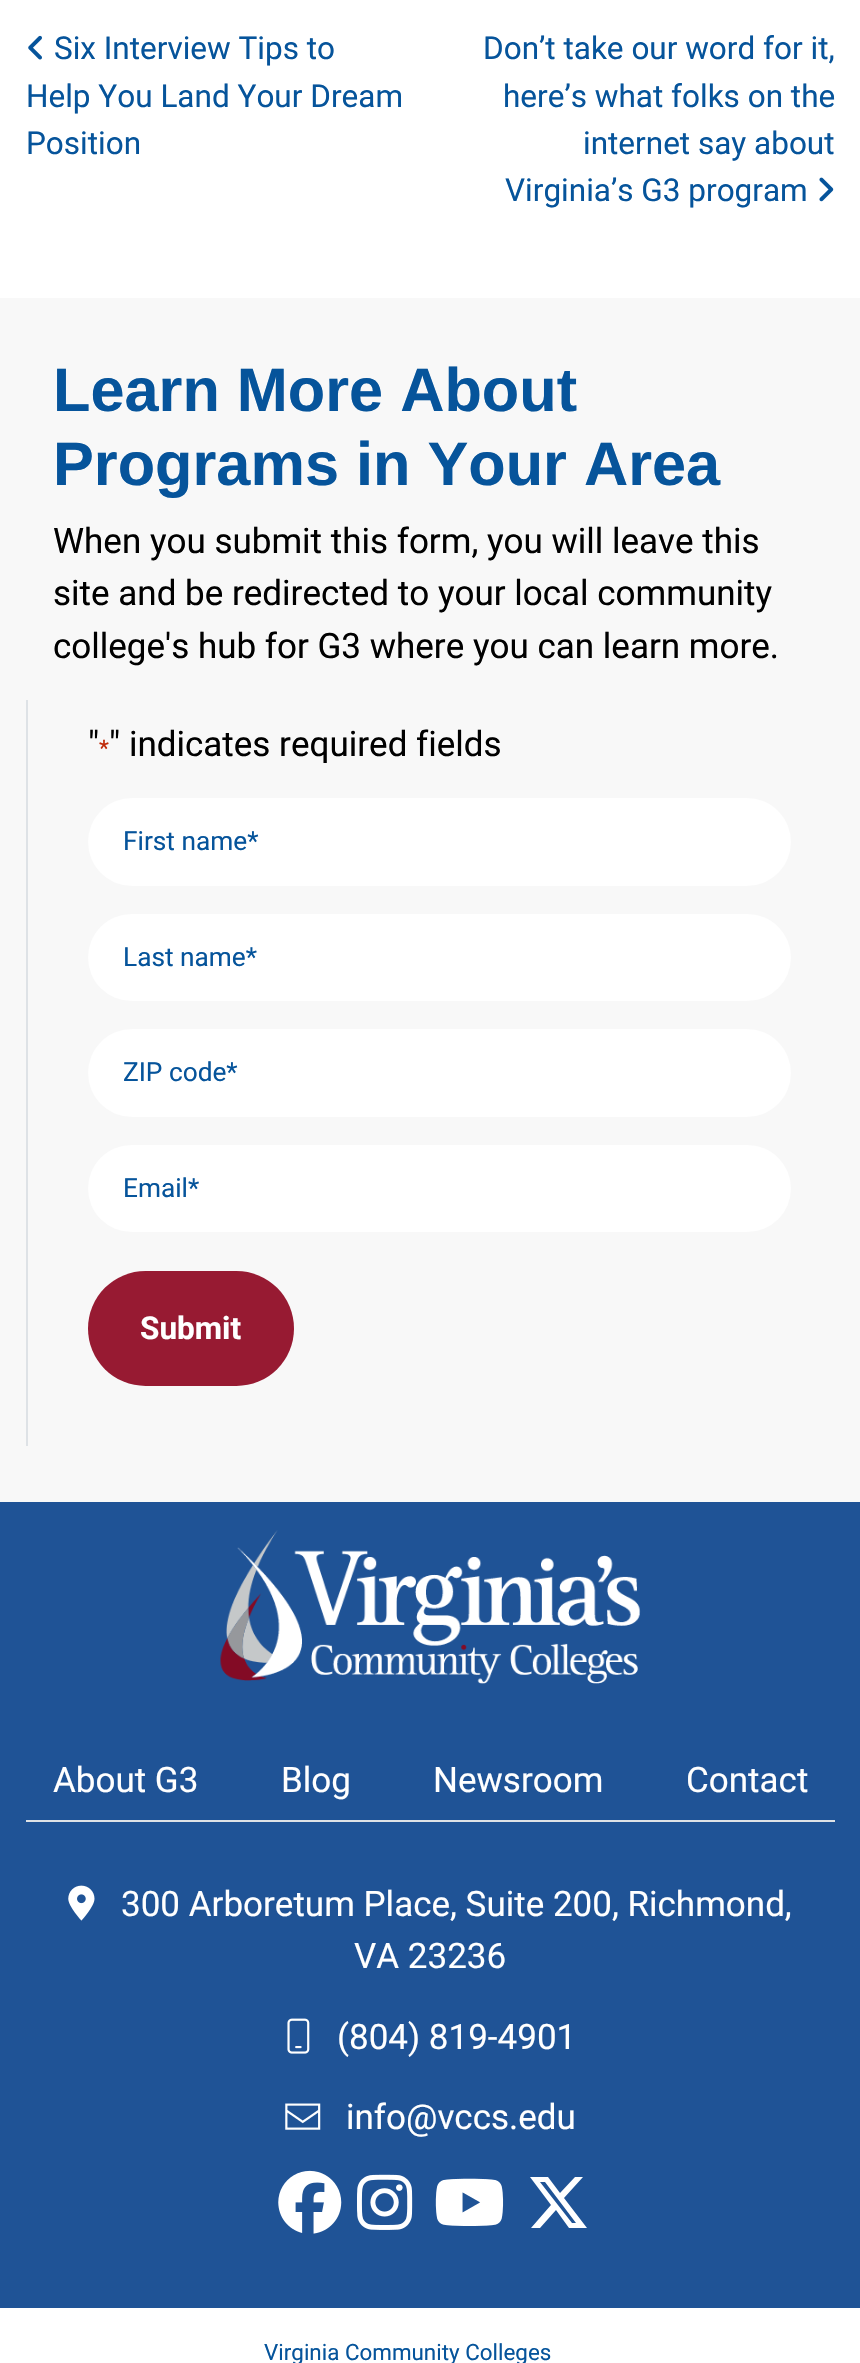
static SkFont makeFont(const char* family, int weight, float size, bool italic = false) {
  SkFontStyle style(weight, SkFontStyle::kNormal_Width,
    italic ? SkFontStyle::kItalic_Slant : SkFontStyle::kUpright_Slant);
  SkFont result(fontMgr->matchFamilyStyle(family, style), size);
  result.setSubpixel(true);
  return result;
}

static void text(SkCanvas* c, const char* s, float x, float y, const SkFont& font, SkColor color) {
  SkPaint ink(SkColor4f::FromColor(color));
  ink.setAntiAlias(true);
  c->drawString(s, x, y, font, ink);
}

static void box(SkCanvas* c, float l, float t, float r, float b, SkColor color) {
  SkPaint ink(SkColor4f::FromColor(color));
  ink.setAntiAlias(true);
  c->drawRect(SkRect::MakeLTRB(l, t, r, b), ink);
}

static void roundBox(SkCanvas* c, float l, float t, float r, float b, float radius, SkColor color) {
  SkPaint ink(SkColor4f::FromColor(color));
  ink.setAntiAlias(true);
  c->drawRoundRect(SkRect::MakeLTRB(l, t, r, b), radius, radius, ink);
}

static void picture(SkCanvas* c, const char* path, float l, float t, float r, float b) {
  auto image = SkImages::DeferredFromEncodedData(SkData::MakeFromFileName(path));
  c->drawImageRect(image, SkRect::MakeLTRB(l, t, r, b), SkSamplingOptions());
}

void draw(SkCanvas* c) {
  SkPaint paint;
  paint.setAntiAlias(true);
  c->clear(0xffffffff);
  picture(c, "img_01.png", 28, 35, 42, 60);
  SkFont face1 = makeFont("Roboto", 400, 31.5f);
  text(c, "Six Interview Tips to", 54, 59, face1, 0xff06549b);
  text(c, "Help You Land Your Dream", 26, 107, face1, 0xff06549b);
  text(c, "Position", 26, 154, face1, 0xff06549b);
  text(c, "Don’t take our word for it,", 483, 59, face1, 0xff06549b);
  text(c, "here’s what folks on the", 503, 107, face1, 0xff06549b);
  text(c, "internet say about", 583, 154, face1, 0xff06549b);
  text(c, "Virginia’s G3 program", 505, 201, face1, 0xff06549b);
  picture(c, "img_02.png", 819, 177, 834, 202);
  box(c, 0, 298, 860, 1502, 0xfff8f8f8);
  SkFont face2 = makeFont("Liberation Sans", 700, 61.25f);
  text(c, "Learn More About", 53, 411, face2, 0xff06549b);
  text(c, "Programs in Your Area", 53, 485, face2, 0xff06549b);
  SkFont face3 = makeFont("Roboto", 400, 35);
  text(c, "When you submit this form, you will leave this", 53, 553, face3, 0xff000000);
  text(c, "site and be redirected to your local community", 53, 605, face3, 0xff000000);
  text(c, "college's hub for G3 where you can learn more.", 53, 658, face3, 0xff000000);
  box(c, 26, 700, 28, 1446, 0xffdee2e6);
  text(c, "\"", 88, 756, face3, 0xff000000);
  SkFont face4 = makeFont("Roboto", 400, 23);
  text(c, "*", 99, 756, face4, 0xffc02b0a);
  text(c, "\" indicates required fields", 109, 756, face3, 0xff000000);
  roundBox(c, 88, 798, 791, 886, 44, 0xffffffff);
  SkFont face5 = makeFont("Roboto", 400, 26.25f);
  text(c, "First name*", 123, 850, face5, 0xff06549b);
  roundBox(c, 88, 914, 791, 1001, 43.5f, 0xffffffff);
  text(c, "Last name*", 123, 966, face5, 0xff06549b);
  roundBox(c, 88, 1029, 791, 1117, 44, 0xffffffff);
  text(c, "ZIP code*", 123, 1081, face5, 0xff06549b);
  roundBox(c, 88, 1145, 791, 1232, 43.5f, 0xffffffff);
  text(c, "Email*", 123, 1197, face5, 0xff06549b);
  roundBox(c, 88, 1271, 294, 1386, 57.5f, 0xff971a32);
  SkFont face6 = makeFont("Roboto", 700, 31.5f);
  text(c, "Submit", 140, 1339, face6, 0xffffffff);
  box(c, 0, 1502, 860, 2308, 0xff1f5396);
  box(c, 26, 1820, 835, 1822, 0xffdee2e6);
  picture(c, "img_03.png", 220, 1530, 641, 1684);
  text(c, "About G3", 53, 1792, face3, 0xffffffff);
  text(c, "Blog", 281, 1792, face3, 0xffffffff);
  text(c, "Newsroom", 433, 1792, face3, 0xffffffff);
  text(c, "Contact", 686, 1792, face3, 0xffffffff);
  picture(c, "img_04.png", 68, 1885, 95, 1921);
  text(c, "300 Arboretum Place, Suite 200, Richmond,", 121, 1916, face3, 0xffffffff);
  text(c, "VA 23236", 354, 1968, face3, 0xffffffff);
  picture(c, "img_05.png", 287, 2018, 310, 2054);
  text(c, "(804) 819-4901", 337, 2049, face3, 0xffffffff);
  picture(c, "img_06.png", 285, 2103, 321, 2130);
  text(c, "info@vccs.edu", 346, 2129, face3, 0xffffffff);
  picture(c, "img_07.png", 278, 2170, 342, 2234);
  picture(c, "img_08.png", 357, 2174, 413, 2230);
  picture(c, "img_09.png", 435, 2178, 504, 2226);
  paint.setColor(0xffffffff);
  c->drawPath(SkPathBuilder().moveTo(575, 2177).lineTo(583, 2177).lineTo(575, 2177).lineTo(583, 2177).lineTo(564, 2198).lineTo(587, 2228).lineTo(569, 2228).lineTo(556, 2210).lineTo(540, 2228).lineTo(531, 2228).lineTo(551, 2205).lineTo(530, 2177).lineTo(548, 2177).lineTo(560, 2193).close().moveTo(572, 2223).lineTo(576, 2223).lineTo(572, 2223).lineTo(576, 2223).lineTo(545, 2182).lineTo(540, 2182).close().detach(), paint);
  SkFont face7 = makeFont("Roboto", 400, 22.4f);
  text(c, "Virginia Community Colleges", 264, 2360, face7, 0xff06549b);
}
